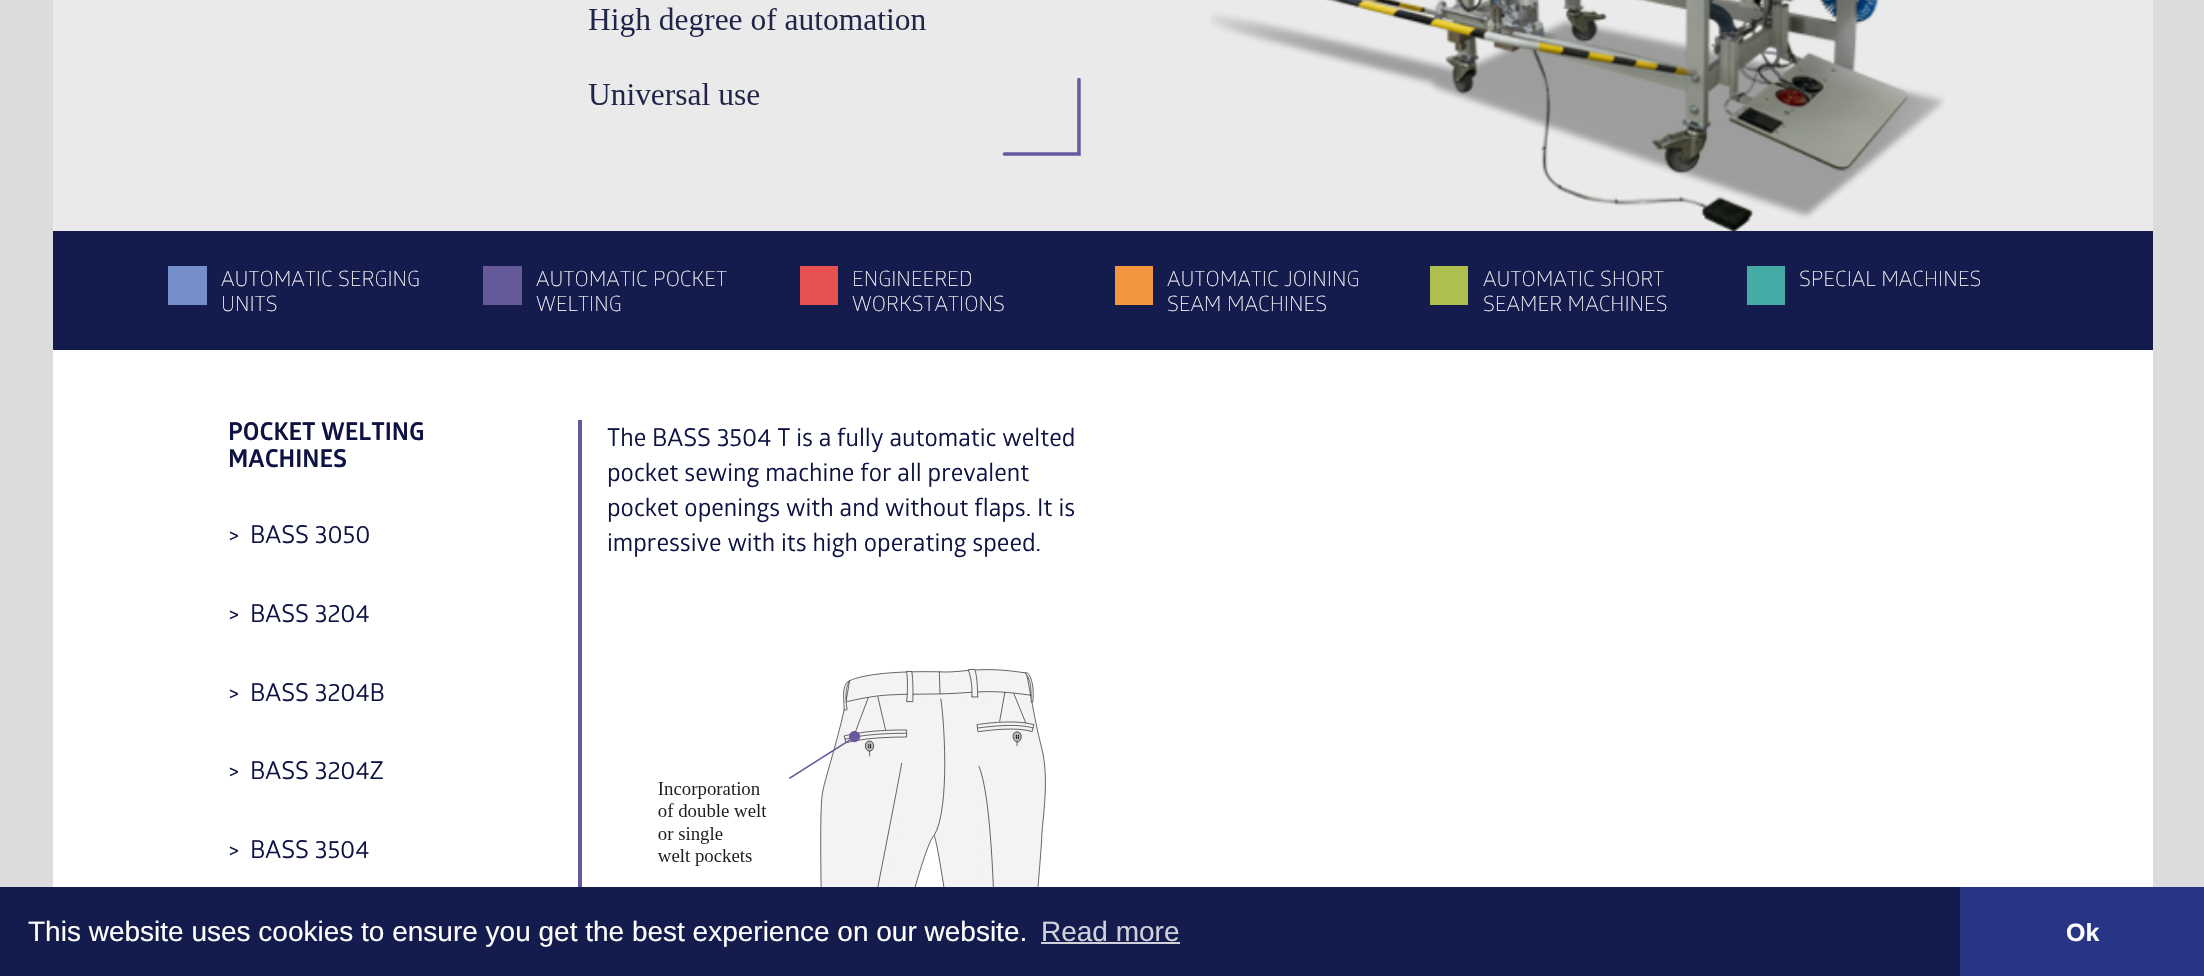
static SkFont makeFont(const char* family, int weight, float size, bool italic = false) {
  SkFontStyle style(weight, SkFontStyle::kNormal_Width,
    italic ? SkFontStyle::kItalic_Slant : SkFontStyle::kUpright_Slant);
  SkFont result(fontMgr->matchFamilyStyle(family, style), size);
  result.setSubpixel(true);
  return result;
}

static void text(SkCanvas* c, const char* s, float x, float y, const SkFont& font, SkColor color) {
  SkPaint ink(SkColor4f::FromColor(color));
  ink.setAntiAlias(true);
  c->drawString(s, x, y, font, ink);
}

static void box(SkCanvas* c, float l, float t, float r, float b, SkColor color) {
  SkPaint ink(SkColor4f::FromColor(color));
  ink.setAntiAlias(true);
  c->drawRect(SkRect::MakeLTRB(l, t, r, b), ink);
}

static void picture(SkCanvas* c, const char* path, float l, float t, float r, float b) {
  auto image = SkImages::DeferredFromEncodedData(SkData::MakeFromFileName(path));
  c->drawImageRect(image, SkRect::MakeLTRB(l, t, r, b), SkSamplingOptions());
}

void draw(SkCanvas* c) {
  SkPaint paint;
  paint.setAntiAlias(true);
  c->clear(0xffdcdcdc);
  box(c, 53, 350, 2153, 887, 0xffffffff);
  box(c, 53, 0, 2153, 231, 0xffeaeaea);
  picture(c, "img_01.png", 588, 7, 1081, 156);
  picture(c, "img_02.png", 1209, 0, 1945, 231);
  box(c, 53, 231, 2153, 350, 0xff141b4d);
  box(c, 168, 266, 207, 305, 0xff748fc9);
  SkFont face1 = makeFont("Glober", 300, 21);
  text(c, "AUTOMATIC SERGING", 221, 286, face1, 0xffffffff);
  text(c, "UNITS", 221, 311, face1, 0xffffffff);
  box(c, 483, 266, 522, 305, 0xff655999);
  text(c, "AUTOMATIC POCKET", 536, 286, face1, 0xffffffff);
  text(c, "WELTING", 536, 311, face1, 0xffffffff);
  box(c, 800, 266, 838, 305, 0xffe75151);
  text(c, "ENGINEERED", 852, 286, face1, 0xffffffff);
  text(c, "WORKSTATIONS", 852, 311, face1, 0xffffffff);
  box(c, 1115, 266, 1153, 305, 0xfff2963f);
  text(c, "AUTOMATIC JOINING", 1167, 286, face1, 0xffffffff);
  text(c, "SEAM MACHINES", 1167, 311, face1, 0xffffffff);
  box(c, 1430, 266, 1468, 305, 0xffaebe4f);
  text(c, "AUTOMATIC SHORT", 1483, 286, face1, 0xffffffff);
  text(c, "SEAMER MACHINES", 1483, 311, face1, 0xffffffff);
  box(c, 1747, 266, 1785, 305, 0xff45aba5);
  text(c, "SPECIAL MACHINES", 1799, 286, face1, 0xffffffff);
  SkFont face2 = makeFont("Glober", 700, 24.5f);
  text(c, "POCKET WELTING", 228, 440, face2, 0xff0e1343);
  text(c, "MACHINES", 228, 467, face2, 0xff0e1343);
  SkFont face3 = makeFont("Glober", 400, 24.5f);
  text(c, ">", 228, 543, face3, 0xff0e1343);
  text(c, "BASS 3050", 250, 543, face3, 0xff0e1343);
  text(c, ">", 228, 622, face3, 0xff0e1343);
  text(c, "BASS 3204", 250, 622, face3, 0xff0e1343);
  text(c, ">", 228, 701, face3, 0xff0e1343);
  text(c, "BASS 3204B", 250, 701, face3, 0xff0e1343);
  text(c, ">", 228, 779, face3, 0xff0e1343);
  text(c, "BASS 3204Z", 250, 779, face3, 0xff0e1343);
  text(c, ">", 228, 858, face3, 0xff0e1343);
  text(c, "BASS 3504", 250, 858, face3, 0xff0e1343);
  box(c, 578, 420, 582, 887, 0xff655999);
  text(c, "The BASS 3504 T is a fully automatic welted", 607, 446, face3, 0xff0e1343);
  text(c, "pocket sewing machine for all prevalent", 607, 481, face3, 0xff0e1343);
  text(c, "pocket openings with and without flaps. It is", 607, 516, face3, 0xff0e1343);
  text(c, "impressive with its high operating speed.", 607, 551, face3, 0xff0e1343);
  picture(c, "img_03.png", 657, 668, 1046, 887);
  box(c, 0, 887, 1960, 976, 0xff141b4d);
  SkFont face4 = makeFont("Liberation Sans", 400, 28);
  text(c, "This website uses cookies to ensure you get the best experience on our website.", 28, 941, face4, 0xffffffff);
  text(c, "Read more", 1041, 941, face4, 0xffd0d1db);
  box(c, 1041, 942, 1180, 944, 0xffd0d1db);
  box(c, 1960, 887, 2204, 976, 0xff283587);
  SkFont face5 = makeFont("Liberation Sans", 700, 25);
  text(c, "Ok", 2066, 941, face5, 0xffffffff);
}
